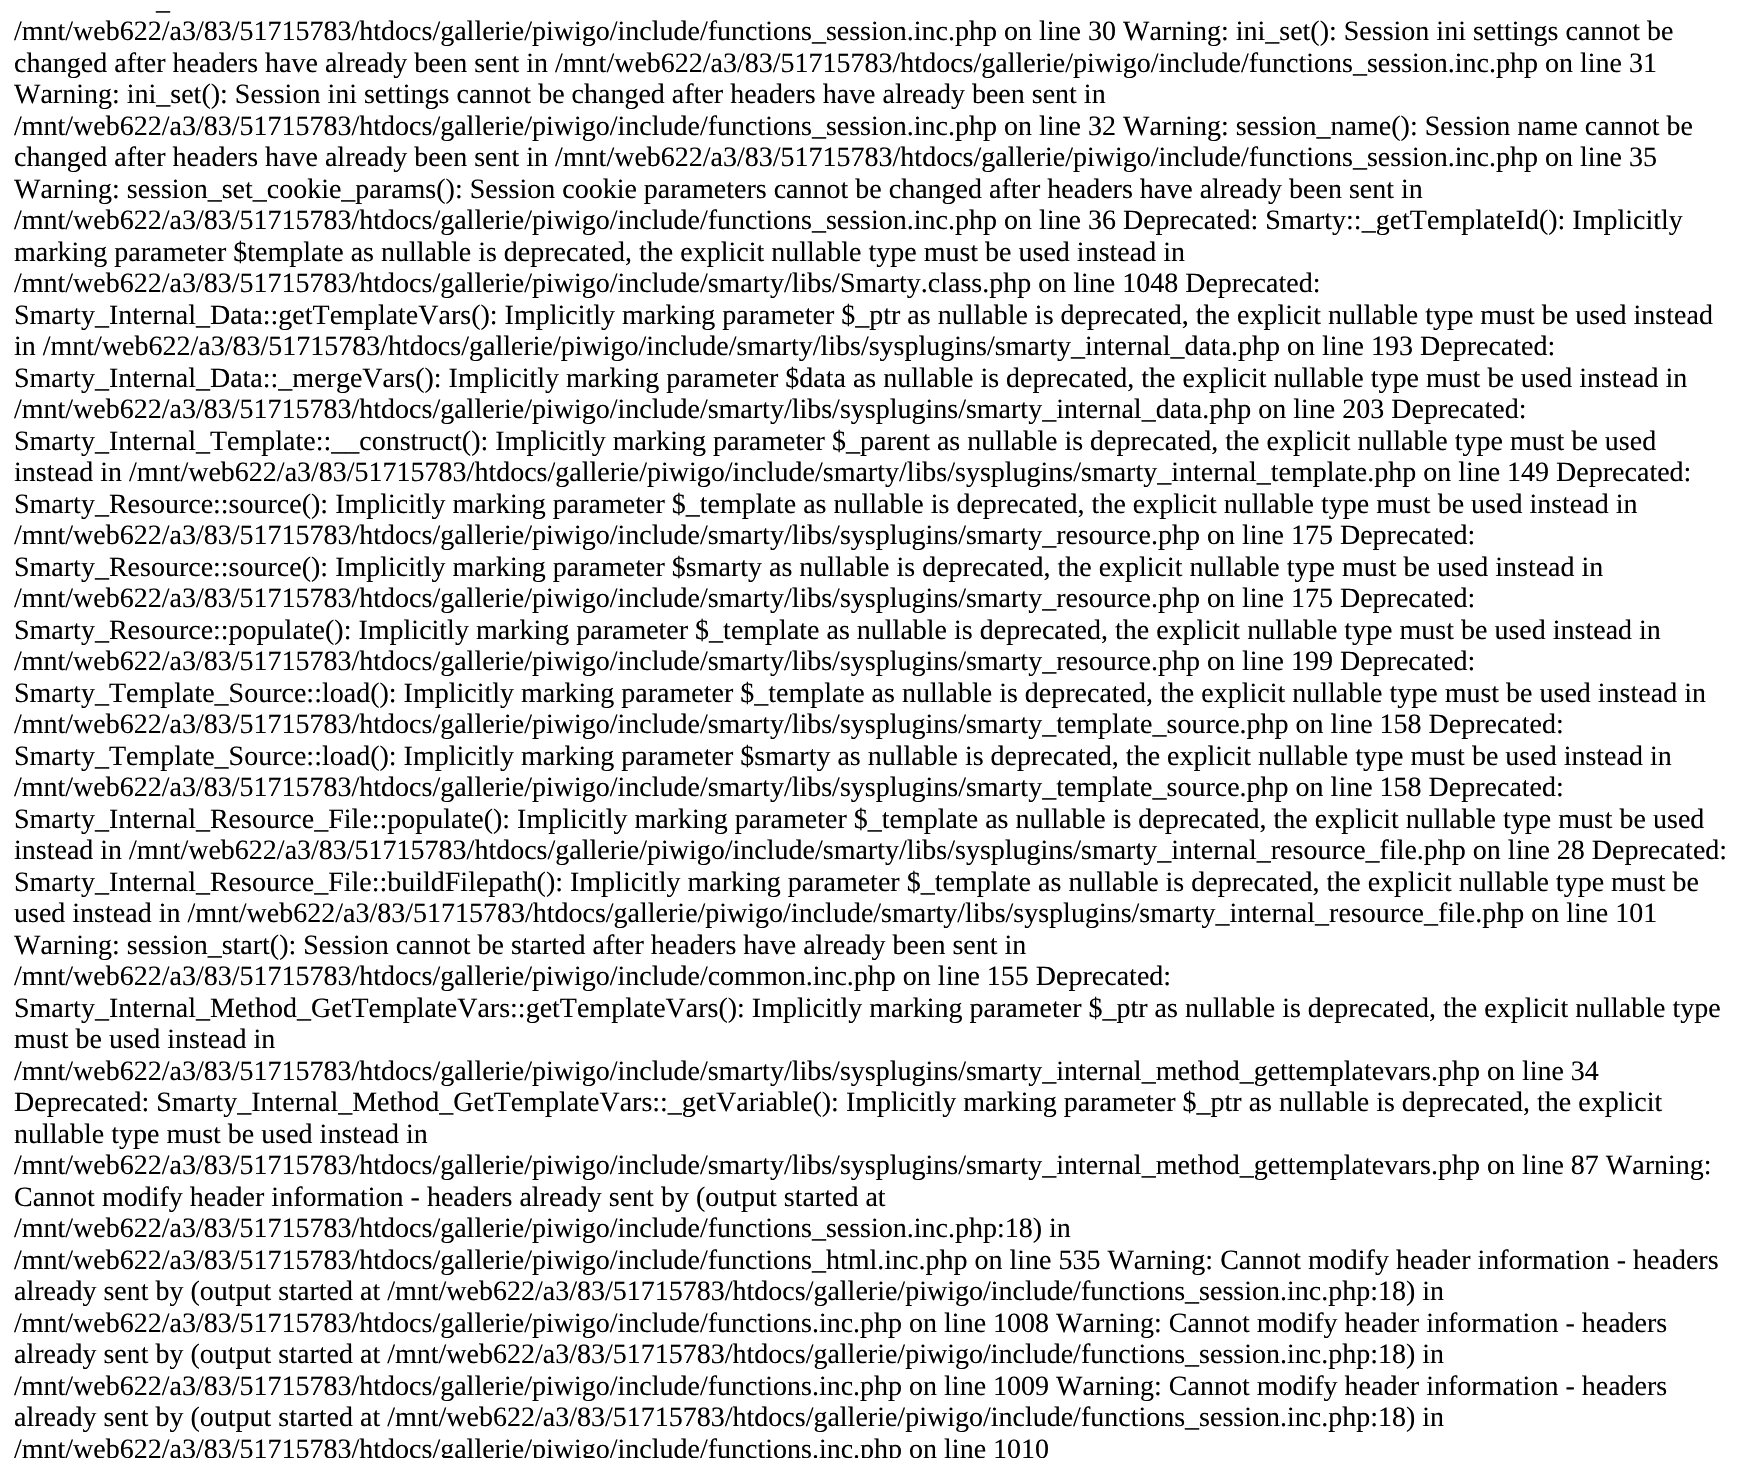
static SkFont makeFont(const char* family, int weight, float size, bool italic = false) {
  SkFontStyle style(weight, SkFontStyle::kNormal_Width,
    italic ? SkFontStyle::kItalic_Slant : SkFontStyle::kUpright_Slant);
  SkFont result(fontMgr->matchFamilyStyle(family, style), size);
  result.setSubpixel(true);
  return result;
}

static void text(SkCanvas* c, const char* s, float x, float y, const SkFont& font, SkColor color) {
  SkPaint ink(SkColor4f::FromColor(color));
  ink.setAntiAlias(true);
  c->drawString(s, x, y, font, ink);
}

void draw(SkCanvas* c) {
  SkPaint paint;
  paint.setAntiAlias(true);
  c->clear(0xffffffff);
  SkFont face1 = makeFont("Liberation Serif", 400, 28);
  text(c, "_", 156, 9, face1, 0xff000000);
  text(c, "/mnt/web622/a3/83/51715783/htdocs/gallerie/piwigo/include/functions_session.inc.php on line 30 Warning: ini_set(): Session ini settings cannot be", 14, 40, face1, 0xff000000);
  text(c, "changed after headers have already been sent in /mnt/web622/a3/83/51715783/htdocs/gallerie/piwigo/include/functions_session.inc.php on line 31", 14, 72, face1, 0xff000000);
  text(c, "Warning: ini_set(): Session ini settings cannot be changed after headers have already been sent in", 14, 103, face1, 0xff000000);
  text(c, "/mnt/web622/a3/83/51715783/htdocs/gallerie/piwigo/include/functions_session.inc.php on line 32 Warning: session_name(): Session name cannot be", 14, 135, face1, 0xff000000);
  text(c, "changed after headers have already been sent in /mnt/web622/a3/83/51715783/htdocs/gallerie/piwigo/include/functions_session.inc.php on line 35", 14, 166, face1, 0xff000000);
  text(c, "Warning: session_set_cookie_params(): Session cookie parameters cannot be changed after headers have already been sent in", 14, 198, face1, 0xff000000);
  text(c, "/mnt/web622/a3/83/51715783/htdocs/gallerie/piwigo/include/functions_session.inc.php on line 36 Deprecated: Smarty::_getTemplateId(): Implicitly", 14, 229, face1, 0xff000000);
  text(c, "marking parameter $template as nullable is deprecated, the explicit nullable type must be used instead in", 14, 261, face1, 0xff000000);
  text(c, "/mnt/web622/a3/83/51715783/htdocs/gallerie/piwigo/include/smarty/libs/Smarty.class.php on line 1048 Deprecated:", 14, 292, face1, 0xff000000);
  text(c, "Smarty_Internal_Data::getTemplateVars(): Implicitly marking parameter $_ptr as nullable is deprecated, the explicit nullable type must be used instead", 14, 324, face1, 0xff000000);
  text(c, "in /mnt/web622/a3/83/51715783/htdocs/gallerie/piwigo/include/smarty/libs/sysplugins/smarty_internal_data.php on line 193 Deprecated:", 14, 355, face1, 0xff000000);
  text(c, "Smarty_Internal_Data::_mergeVars(): Implicitly marking parameter $data as nullable is deprecated, the explicit nullable type must be used instead in", 14, 387, face1, 0xff000000);
  text(c, "/mnt/web622/a3/83/51715783/htdocs/gallerie/piwigo/include/smarty/libs/sysplugins/smarty_internal_data.php on line 203 Deprecated:", 14, 418, face1, 0xff000000);
  text(c, "Smarty_Internal_Template::__construct(): Implicitly marking parameter $_parent as nullable is deprecated, the explicit nullable type must be used", 14, 450, face1, 0xff000000);
  text(c, "instead in /mnt/web622/a3/83/51715783/htdocs/gallerie/piwigo/include/smarty/libs/sysplugins/smarty_internal_template.php on line 149 Deprecated:", 14, 481, face1, 0xff000000);
  text(c, "Smarty_Resource::source(): Implicitly marking parameter $_template as nullable is deprecated, the explicit nullable type must be used instead in", 14, 513, face1, 0xff000000);
  text(c, "/mnt/web622/a3/83/51715783/htdocs/gallerie/piwigo/include/smarty/libs/sysplugins/smarty_resource.php on line 175 Deprecated:", 14, 544, face1, 0xff000000);
  text(c, "Smarty_Resource::source(): Implicitly marking parameter $smarty as nullable is deprecated, the explicit nullable type must be used instead in", 14, 576, face1, 0xff000000);
  text(c, "/mnt/web622/a3/83/51715783/htdocs/gallerie/piwigo/include/smarty/libs/sysplugins/smarty_resource.php on line 175 Deprecated:", 14, 607, face1, 0xff000000);
  text(c, "Smarty_Resource::populate(): Implicitly marking parameter $_template as nullable is deprecated, the explicit nullable type must be used instead in", 14, 639, face1, 0xff000000);
  text(c, "/mnt/web622/a3/83/51715783/htdocs/gallerie/piwigo/include/smarty/libs/sysplugins/smarty_resource.php on line 199 Deprecated:", 14, 670, face1, 0xff000000);
  text(c, "Smarty_Template_Source::load(): Implicitly marking parameter $_template as nullable is deprecated, the explicit nullable type must be used instead in", 14, 702, face1, 0xff000000);
  text(c, "/mnt/web622/a3/83/51715783/htdocs/gallerie/piwigo/include/smarty/libs/sysplugins/smarty_template_source.php on line 158 Deprecated:", 14, 733, face1, 0xff000000);
  text(c, "Smarty_Template_Source::load(): Implicitly marking parameter $smarty as nullable is deprecated, the explicit nullable type must be used instead in", 14, 765, face1, 0xff000000);
  text(c, "/mnt/web622/a3/83/51715783/htdocs/gallerie/piwigo/include/smarty/libs/sysplugins/smarty_template_source.php on line 158 Deprecated:", 14, 796, face1, 0xff000000);
  text(c, "Smarty_Internal_Resource_File::populate(): Implicitly marking parameter $_template as nullable is deprecated, the explicit nullable type must be used", 14, 828, face1, 0xff000000);
  text(c, "instead in /mnt/web622/a3/83/51715783/htdocs/gallerie/piwigo/include/smarty/libs/sysplugins/smarty_internal_resource_file.php on line 28 Deprecated:", 14, 859, face1, 0xff000000);
  text(c, "Smarty_Internal_Resource_File::buildFilepath(): Implicitly marking parameter $_template as nullable is deprecated, the explicit nullable type must be", 14, 891, face1, 0xff000000);
  text(c, "used instead in /mnt/web622/a3/83/51715783/htdocs/gallerie/piwigo/include/smarty/libs/sysplugins/smarty_internal_resource_file.php on line 101", 14, 922, face1, 0xff000000);
  text(c, "Warning: session_start(): Session cannot be started after headers have already been sent in", 14, 954, face1, 0xff000000);
  text(c, "/mnt/web622/a3/83/51715783/htdocs/gallerie/piwigo/include/common.inc.php on line 155 Deprecated:", 14, 985, face1, 0xff000000);
  text(c, "Smarty_Internal_Method_GetTemplateVars::getTemplateVars(): Implicitly marking parameter $_ptr as nullable is deprecated, the explicit nullable type", 14, 1017, face1, 0xff000000);
  text(c, "must be used instead in", 14, 1048, face1, 0xff000000);
  text(c, "/mnt/web622/a3/83/51715783/htdocs/gallerie/piwigo/include/smarty/libs/sysplugins/smarty_internal_method_gettemplatevars.php on line 34", 14, 1080, face1, 0xff000000);
  text(c, "Deprecated: Smarty_Internal_Method_GetTemplateVars::_getVariable(): Implicitly marking parameter $_ptr as nullable is deprecated, the explicit", 14, 1111, face1, 0xff000000);
  text(c, "nullable type must be used instead in", 14, 1143, face1, 0xff000000);
  text(c, "/mnt/web622/a3/83/51715783/htdocs/gallerie/piwigo/include/smarty/libs/sysplugins/smarty_internal_method_gettemplatevars.php on line 87 Warning:", 14, 1174, face1, 0xff000000);
  text(c, "Cannot modify header information - headers already sent by (output started at", 14, 1206, face1, 0xff000000);
  text(c, "/mnt/web622/a3/83/51715783/htdocs/gallerie/piwigo/include/functions_session.inc.php:18) in", 14, 1237, face1, 0xff000000);
  text(c, "/mnt/web622/a3/83/51715783/htdocs/gallerie/piwigo/include/functions_html.inc.php on line 535 Warning: Cannot modify header information - headers", 14, 1269, face1, 0xff000000);
  text(c, "already sent by (output started at /mnt/web622/a3/83/51715783/htdocs/gallerie/piwigo/include/functions_session.inc.php:18) in", 14, 1300, face1, 0xff000000);
  text(c, "/mnt/web622/a3/83/51715783/htdocs/gallerie/piwigo/include/functions.inc.php on line 1008 Warning: Cannot modify header information - headers", 14, 1332, face1, 0xff000000);
  text(c, "already sent by (output started at /mnt/web622/a3/83/51715783/htdocs/gallerie/piwigo/include/functions_session.inc.php:18) in", 14, 1363, face1, 0xff000000);
  text(c, "/mnt/web622/a3/83/51715783/htdocs/gallerie/piwigo/include/functions.inc.php on line 1009 Warning: Cannot modify header information - headers", 14, 1395, face1, 0xff000000);
  text(c, "already sent by (output started at /mnt/web622/a3/83/51715783/htdocs/gallerie/piwigo/include/functions_session.inc.php:18) in", 14, 1426, face1, 0xff000000);
  text(c, "/mnt/web622/a3/83/51715783/htdocs/gallerie/piwigo/include/functions.inc.php on line 1010", 14, 1458, face1, 0xff000000);
}
